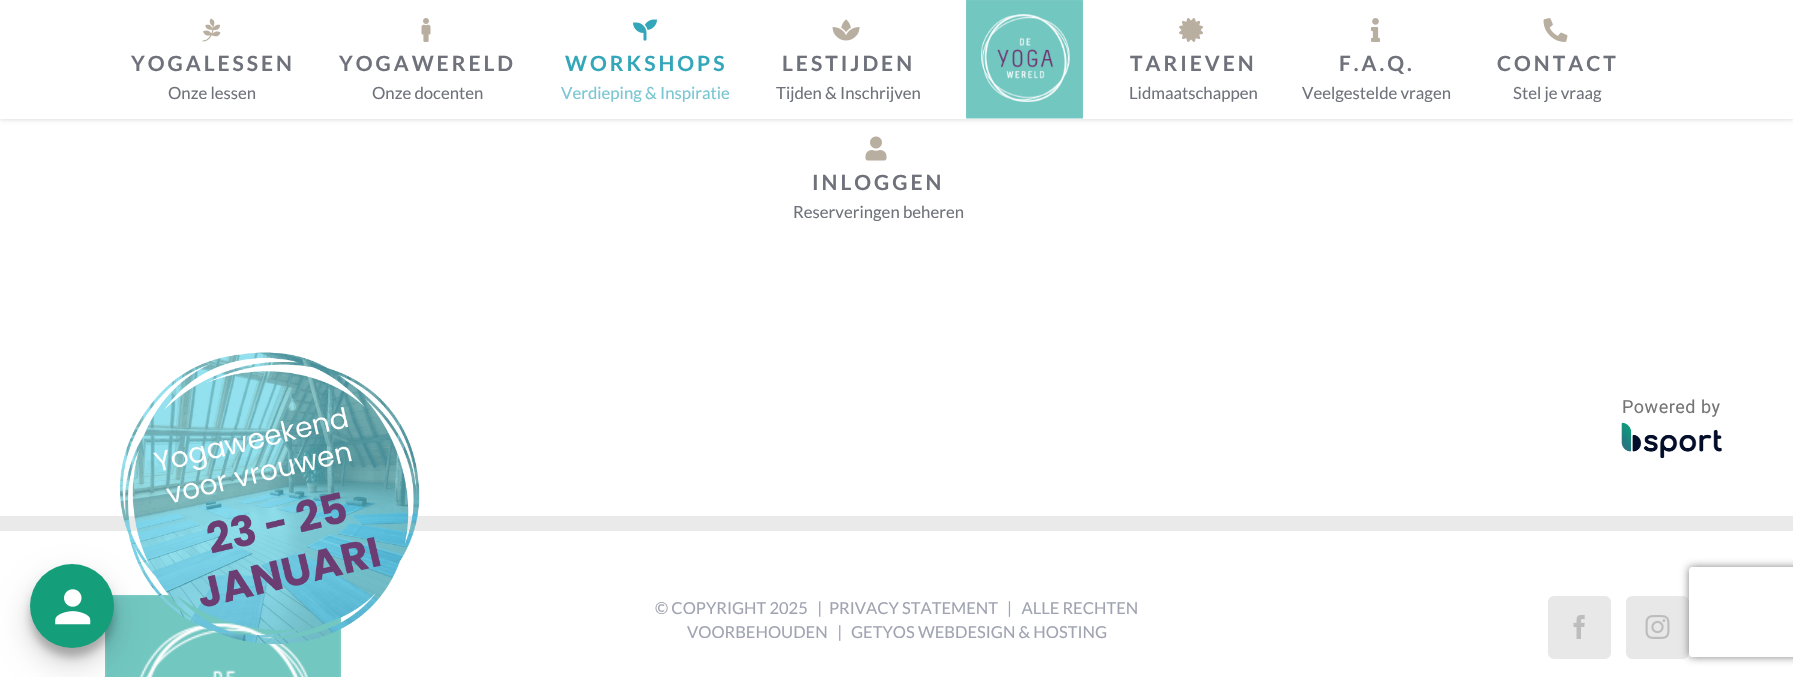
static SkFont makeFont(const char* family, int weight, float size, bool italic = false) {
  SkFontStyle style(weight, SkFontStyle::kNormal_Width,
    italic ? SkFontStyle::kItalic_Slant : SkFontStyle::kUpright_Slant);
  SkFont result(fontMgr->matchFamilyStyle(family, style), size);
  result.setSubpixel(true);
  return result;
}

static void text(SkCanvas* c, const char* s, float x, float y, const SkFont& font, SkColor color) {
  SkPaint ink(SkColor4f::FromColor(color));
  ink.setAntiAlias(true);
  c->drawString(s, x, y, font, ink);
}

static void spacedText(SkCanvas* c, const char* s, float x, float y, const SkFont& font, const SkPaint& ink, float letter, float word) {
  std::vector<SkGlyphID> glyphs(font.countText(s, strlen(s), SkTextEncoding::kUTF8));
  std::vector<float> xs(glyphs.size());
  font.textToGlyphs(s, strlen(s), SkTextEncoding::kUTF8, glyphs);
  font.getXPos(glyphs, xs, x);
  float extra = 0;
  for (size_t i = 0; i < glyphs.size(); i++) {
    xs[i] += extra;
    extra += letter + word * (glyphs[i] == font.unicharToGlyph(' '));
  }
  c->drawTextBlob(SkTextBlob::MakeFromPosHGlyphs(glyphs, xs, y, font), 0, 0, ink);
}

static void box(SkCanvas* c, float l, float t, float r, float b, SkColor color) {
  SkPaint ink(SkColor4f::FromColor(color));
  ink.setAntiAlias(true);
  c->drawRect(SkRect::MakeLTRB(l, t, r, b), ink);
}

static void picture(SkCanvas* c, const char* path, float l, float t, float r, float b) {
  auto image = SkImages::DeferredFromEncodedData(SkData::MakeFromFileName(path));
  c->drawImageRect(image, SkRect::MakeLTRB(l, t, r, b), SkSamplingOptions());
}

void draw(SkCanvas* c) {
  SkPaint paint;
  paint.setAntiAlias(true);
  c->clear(0xffffffff);
  paint.setColor(0x1f000000);
  paint.setMaskFilter(SkMaskFilter::MakeBlur(kNormal_SkBlurStyle, 2));
  c->drawRect(SkRect::MakeLTRB(0, 2, 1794, 120), paint);
  paint.setMaskFilter(nullptr);
  box(c, 0, 0, 1793, 119, 0xffffffff);
  picture(c, "img_01.png", 202, 18, 221, 42);
  SkFont face1 = makeFont("Lato", 700, 21);
  paint.setColor(0xff6f727b);
  spacedText(c, "YOGALESSEN", 131, 71, face1, paint, 3, 0);
  SkFont face2 = makeFont("Lato", 400, 16.75f);
  text(c, "Onze lessen", 168, 99, face2, 0xff6f727b);
  picture(c, "img_02.png", 421, 18, 431, 42);
  spacedText(c, "YOGAWERELD", 339, 71, face1, paint, 3, 0);
  text(c, "Onze docenten", 372, 99, face2, 0xff6f727b);
  picture(c, "img_03.png", 633, 19, 657, 41);
  paint.setColor(0xff33a7b9);
  spacedText(c, "WORKSHOPS", 565, 71, face1, paint, 3, 0);
  text(c, "Verdieping & Inspiratie", 561, 99, face2, 0xff7ac6d2);
  picture(c, "img_04.png", 832, 19, 860, 41);
  paint.setColor(0xff6f727b);
  spacedText(c, "LESTIJDEN", 782, 71, face1, paint, 3, 0);
  text(c, "Tijden & Inschrijven", 776, 99, face2, 0xff6f727b);
  picture(c, "img_05.png", 966, 0, 1083, 119);
  picture(c, "img_06.png", 1179, 18, 1203, 42);
  spacedText(c, "TARIEVEN", 1130, 71, face1, paint, 3, 0);
  text(c, "Lidmaatschappen", 1129, 99, face2, 0xff6f727b);
  picture(c, "img_07.png", 1371, 18, 1380, 42);
  spacedText(c, "F.A.Q.", 1339, 71, face1, paint, 3, 0);
  text(c, "Veelgestelde vragen", 1302, 99, face2, 0xff6f727b);
  picture(c, "img_08.png", 1543, 18, 1568, 42);
  spacedText(c, "CONTACT", 1497, 71, face1, paint, 3, 0);
  text(c, "Stel je vraag", 1513, 99, face2, 0xff6f727b);
  picture(c, "img_09.png", 865, 136, 887, 161);
  spacedText(c, "INLOGGEN", 812, 190, face1, paint, 3, 0);
  text(c, "Reserveringen beheren", 793, 218, face2, 0xff6f727b);
  SkFont face3 = makeFont("Roboto", 400, 18);
  paint.setColor(0xff757575);
  spacedText(c, "Powered by", 1622, 413, face3, paint, 0.5f, 0);
  picture(c, "img_10.png", 1621, 422, 1722, 459);
  box(c, 0, 516, 1793, 531, 0xffebeaea);
  picture(c, "img_11.png", 105, 595, 341, 677);
  SkFont face4 = makeFont("Lato", 400, 16.5f);
  text(c, "© COPYRIGHT 2025   |", 655, 614, face4, 0xffa0a4b1);
  text(c, "PRIVACY STATEMENT", 829, 614, face4, 0xffa0a4b1);
  text(c, "|   ALLE RECHTEN", 1007, 614, face4, 0xffa0a4b1);
  text(c, "VOORBEHOUDEN   |", 687, 638, face4, 0xffa0a4b1);
  text(c, "GETYOS WEBDESIGN & HOSTING", 851, 638, face4, 0xffa0a4b1);
  paint.setColor(0xffe8e8e8);
  c->drawRoundRect(SkRect::MakeLTRB(1549, 597, 1610, 658), 5, 5, paint);
  paint.setStyle(SkPaint::kStroke_Style);
  paint.setStrokeWidth(2);
  c->drawRoundRect(SkRect::MakeLTRB(1549, 597, 1610, 658), 5, 5, paint);
  picture(c, "img_12.png", 1573, 615, 1585, 639);
  paint.setStyle(SkPaint::kFill_Style);
  c->drawRoundRect(SkRect::MakeLTRB(1627, 597, 1688, 658), 5, 5, paint);
  paint.setStyle(SkPaint::kStroke_Style);
  c->drawRoundRect(SkRect::MakeLTRB(1627, 597, 1688, 658), 5, 5, paint);
  picture(c, "img_13.png", 1645, 615, 1670, 639);
  paint.setStyle(SkPaint::kFill_Style);
  paint.setColor(0x3b000000);
  paint.setMaskFilter(SkMaskFilter::MakeBlur(kNormal_SkBlurStyle, 4.5f));
  c->drawRoundRect(SkRect::MakeLTRB(30, 573, 114, 657), 42, 42, paint);
  paint.setMaskFilter(nullptr);
  paint.setColor(0x30000000);
  paint.setMaskFilter(SkMaskFilter::MakeBlur(kNormal_SkBlurStyle, 15));
  c->drawRoundRect(SkRect::MakeLTRB(30, 579, 114, 663), 42, 42, paint);
  paint.setMaskFilter(nullptr);
  paint.setColor(0xff149e7a);
  c->drawCircle(72, 606, 42, paint);
  picture(c, "img_14.png", 55, 589, 91, 625);
  picture(c, "img_15.png", 120, 352, 420, 644);
  c->save();
  c->clipPath(SkPathBuilder(SkPathFillType::kEvenOdd).moveTo(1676, 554).lineTo(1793, 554).lineTo(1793, 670).lineTo(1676, 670).close().moveTo(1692, 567).lineTo(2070, 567).cubicTo(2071.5f, 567, 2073, 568.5f, 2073, 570).lineTo(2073, 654).cubicTo(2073, 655.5f, 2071.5f, 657, 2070, 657).lineTo(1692, 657).cubicTo(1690.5f, 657, 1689, 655.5f, 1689, 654).lineTo(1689, 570).cubicTo(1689, 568.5f, 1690.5f, 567, 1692, 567).close().detach(), true);
  paint.setColor(0xff808080);
  paint.setMaskFilter(SkMaskFilter::MakeBlur(kNormal_SkBlurStyle, 4));
  c->drawRoundRect(SkRect::MakeLTRB(1689, 567, 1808, 657), 3, 3, paint);
  paint.setMaskFilter(nullptr);
  c->restore();
}
